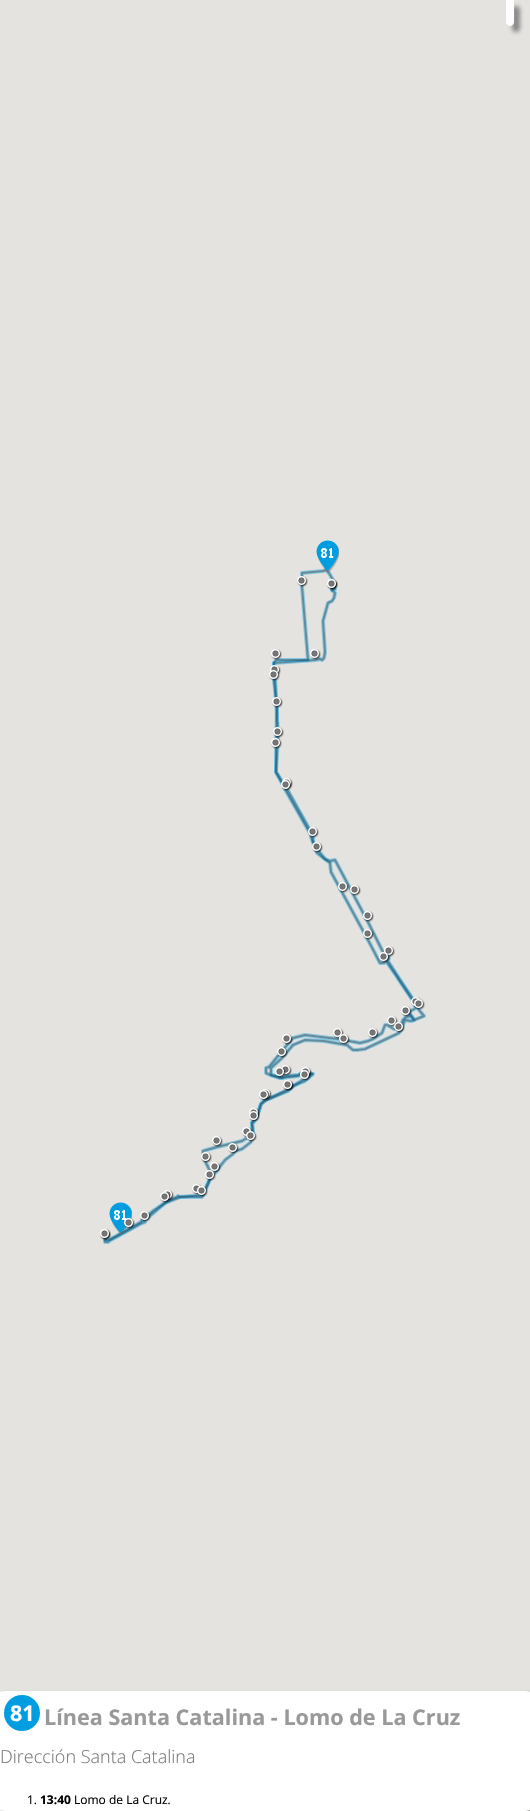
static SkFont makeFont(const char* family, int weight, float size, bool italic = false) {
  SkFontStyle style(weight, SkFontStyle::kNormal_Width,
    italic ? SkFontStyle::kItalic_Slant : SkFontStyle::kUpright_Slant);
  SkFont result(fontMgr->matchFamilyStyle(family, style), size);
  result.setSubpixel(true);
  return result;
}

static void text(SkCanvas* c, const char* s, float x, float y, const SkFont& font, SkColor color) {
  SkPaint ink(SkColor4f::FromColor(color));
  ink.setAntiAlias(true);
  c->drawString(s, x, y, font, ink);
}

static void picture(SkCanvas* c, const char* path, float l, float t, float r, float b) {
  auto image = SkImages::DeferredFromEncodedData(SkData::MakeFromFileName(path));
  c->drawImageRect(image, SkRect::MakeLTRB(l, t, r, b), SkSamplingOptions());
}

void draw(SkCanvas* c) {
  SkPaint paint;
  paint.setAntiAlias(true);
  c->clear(0xffe5e3df);
  paint.setColor(0xff888888);
  paint.setMaskFilter(SkMaskFilter::MakeBlur(kNormal_SkBlurStyle, 2));
  c->drawRoundRect(SkRect::MakeLTRB(512, 6, 520, 32), 4, 4, paint);
  paint.setMaskFilter(nullptr);
  paint.setColor(0xffffffff);
  c->drawPath(SkPathBuilder().moveTo(506, 0).lineTo(514, 0).lineTo(514, 22).cubicTo(514, 24, 512, 26, 510, 26).cubicTo(508, 26, 506, 24, 506, 22).close().detach(), paint);
  picture(c, "img_58.png", 272, 568, 337, 722);
  picture(c, "img_01.png", 316, 540, 339, 572);
  picture(c, "img_02.png", 297, 576, 308, 587);
  picture(c, "img_03.png", 327, 579, 338, 590);
  picture(c, "img_04.png", 327, 579, 338, 590);
  picture(c, "img_05.png", 271, 649, 282, 660);
  picture(c, "img_06.png", 310, 649, 321, 660);
  picture(c, "img_07.png", 270, 665, 281, 676);
  picture(c, "img_08.png", 269, 670, 280, 681);
  picture(c, "img_09.png", 272, 697, 283, 708);
  picture(c, "img_59.png", 274, 722, 372, 952);
  picture(c, "img_10.png", 273, 727, 284, 738);
  picture(c, "img_11.png", 271, 738, 282, 749);
  picture(c, "img_12.png", 282, 778, 293, 789);
  picture(c, "img_13.png", 281, 780, 292, 791);
  picture(c, "img_14.png", 308, 827, 319, 838);
  picture(c, "img_15.png", 312, 842, 323, 853);
  picture(c, "img_16.png", 338, 882, 349, 893);
  picture(c, "img_17.png", 350, 885, 361, 896);
  picture(c, "img_18.png", 363, 911, 374, 922);
  picture(c, "img_60.png", 372, 925, 401, 978);
  picture(c, "img_19.png", 363, 929, 374, 940);
  picture(c, "img_20.png", 384, 946, 395, 957);
  picture(c, "img_21.png", 379, 952, 390, 963);
  picture(c, "img_61.png", 372, 978, 426, 1048);
  picture(c, "img_22.png", 411, 997, 422, 1008);
  picture(c, "img_23.png", 414, 999, 425, 1010);
  picture(c, "img_24.png", 401, 1006, 412, 1017);
  picture(c, "img_62.png", 116, 1033, 372, 1234);
  picture(c, "img_25.png", 282, 1034, 293, 1045);
  picture(c, "img_26.png", 333, 1028, 344, 1039);
  picture(c, "img_27.png", 339, 1034, 350, 1045);
  picture(c, "img_28.png", 368, 1028, 379, 1039);
  picture(c, "img_29.png", 387, 1016, 398, 1027);
  picture(c, "img_30.png", 394, 1022, 405, 1033);
  picture(c, "img_31.png", 277, 1047, 288, 1058);
  picture(c, "img_33.png", 281, 1065, 292, 1076);
  picture(c, "img_32.png", 275, 1067, 286, 1078);
  picture(c, "img_34.png", 301, 1067, 312, 1078);
  picture(c, "img_35.png", 300, 1070, 311, 1081);
  picture(c, "img_36.png", 283, 1080, 294, 1091);
  picture(c, "img_37.png", 283, 1080, 294, 1091);
  picture(c, "img_38.png", 261, 1089, 272, 1100);
  picture(c, "img_39.png", 259, 1090, 270, 1101);
  picture(c, "img_40.png", 249, 1108, 260, 1119);
  picture(c, "img_41.png", 249, 1111, 260, 1122);
  picture(c, "img_42.png", 242, 1127, 253, 1138);
  picture(c, "img_43.png", 212, 1136, 223, 1147);
  picture(c, "img_44.png", 246, 1131, 257, 1142);
  picture(c, "img_45.png", 228, 1143, 239, 1154);
  picture(c, "img_46.png", 201, 1152, 212, 1163);
  picture(c, "img_47.png", 210, 1162, 221, 1173);
  picture(c, "img_48.png", 205, 1170, 216, 1181);
  picture(c, "img_49.png", 192, 1184, 203, 1195);
  picture(c, "img_50.png", 163, 1190, 174, 1201);
  picture(c, "img_51.png", 197, 1186, 208, 1197);
  picture(c, "img_52.png", 160, 1192, 171, 1203);
  picture(c, "img_53.png", 109, 1202, 132, 1234);
  picture(c, "img_54.png", 140, 1211, 151, 1222);
  picture(c, "img_55.png", 124, 1218, 135, 1229);
  picture(c, "img_63.png", 103, 1234, 116, 1244);
  picture(c, "img_56.png", 100, 1229, 111, 1240);
  picture(c, "img_57.png", 100, 1229, 111, 1240);
  picture(c, "img_64.png", 116, 1234, 126, 1240);
  paint.setColor(0xff888888);
  paint.setMaskFilter(SkMaskFilter::MakeBlur(kNormal_SkBlurStyle, 2));
  c->drawRoundRect(SkRect::MakeLTRB(3, 1694, 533, 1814), 1, 1, paint);
  paint.setMaskFilter(nullptr);
  paint.setColor(0xffffffff);
  c->drawPath(SkPathBuilder().moveTo(5, 1691).lineTo(525, 1691).cubicTo(528, 1691, 530, 1692, 530, 1692).lineTo(530, 1810).cubicTo(530, 1810, 528, 1811, 525, 1811).lineTo(5, 1811).cubicTo(2, 1811, 0, 1810, 0, 1810).lineTo(0, 1692).cubicTo(0, 1692, 2, 1691, 5, 1691).close().detach(), paint);
  paint.setColor(0xff009ee0);
  c->drawCircle(22, 1713, 18, paint);
  SkFont face1 = makeFont("Open Sans", 700, 21.6f);
  text(c, "81", 10, 1721, face1, 0xffffffff);
  text(c, "Línea Santa Catalina - Lomo de La Cruz", 44, 1725, face1, 0xff999999);
  SkFont face2 = makeFont("Open Sans", 300, 18);
  text(c, "Dirección Santa Catalina", 0, 1763, face2, 0xff777777);
  SkFont face3 = makeFont("Open Sans", 400, 12);
  text(c, "1.", 27, 1804, face3, 0xff000000);
  SkFont face4 = makeFont("Open Sans", 700, 12);
  text(c, "13:40", 40, 1804, face4, 0xff000000);
  text(c, "Lomo de La Cruz.", 74, 1804, face3, 0xff000000);
}
